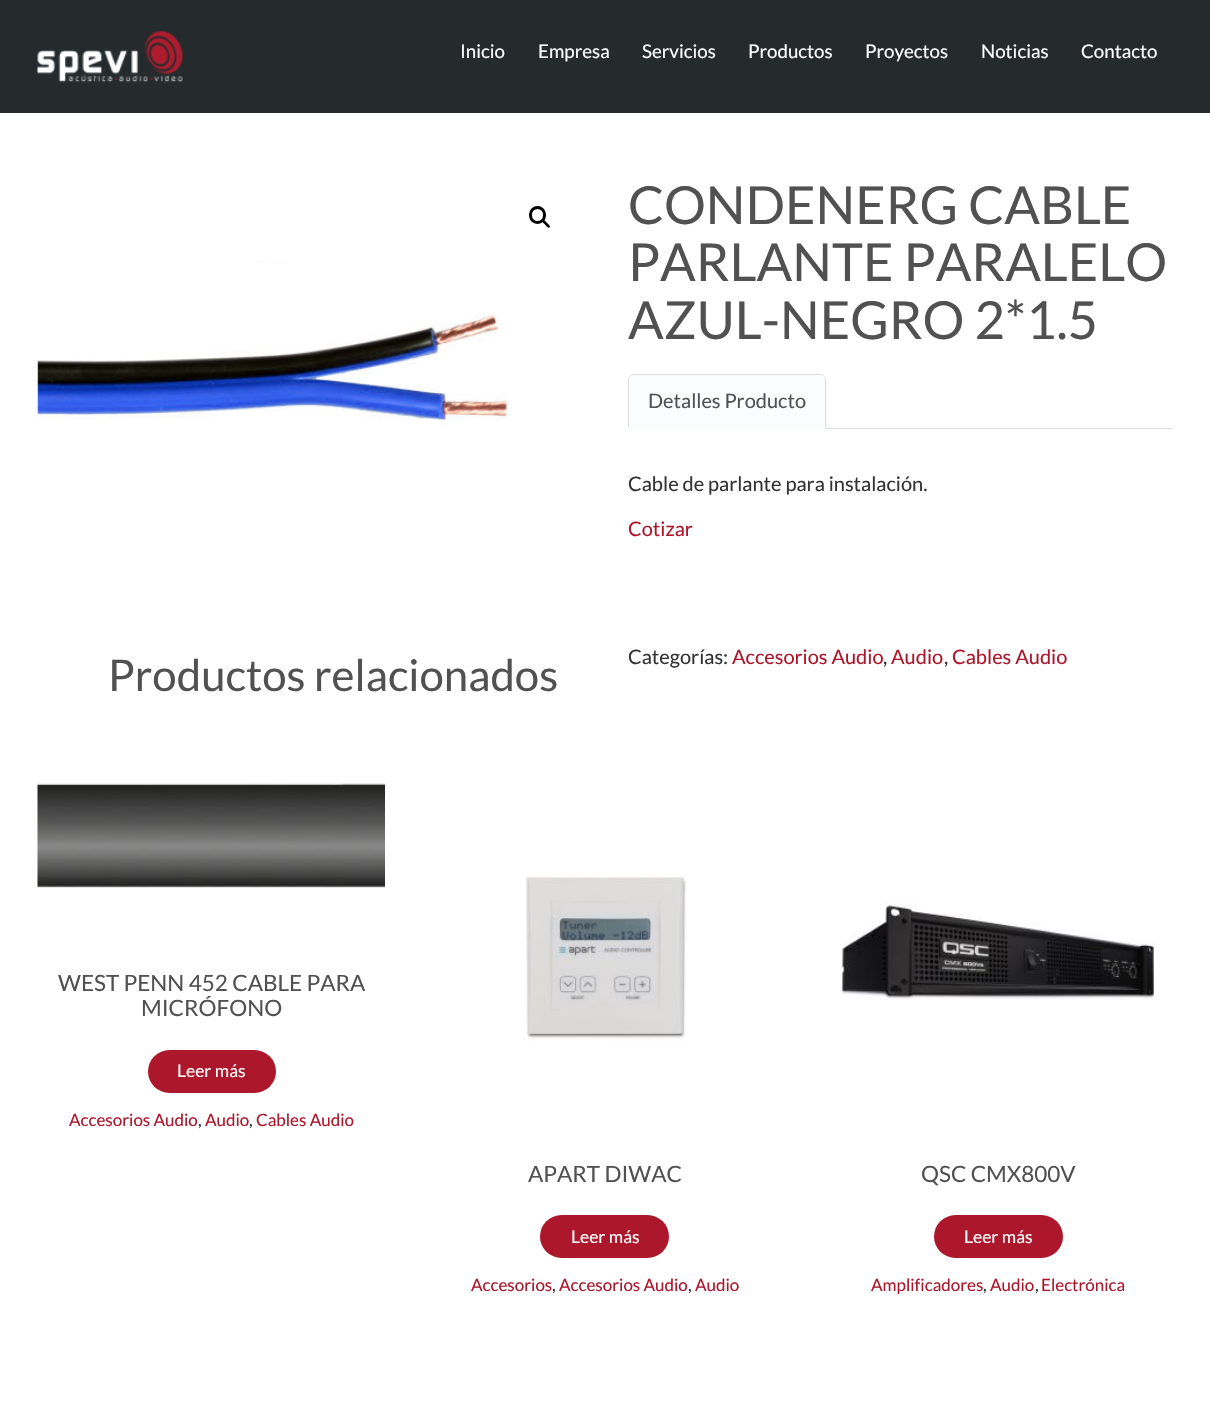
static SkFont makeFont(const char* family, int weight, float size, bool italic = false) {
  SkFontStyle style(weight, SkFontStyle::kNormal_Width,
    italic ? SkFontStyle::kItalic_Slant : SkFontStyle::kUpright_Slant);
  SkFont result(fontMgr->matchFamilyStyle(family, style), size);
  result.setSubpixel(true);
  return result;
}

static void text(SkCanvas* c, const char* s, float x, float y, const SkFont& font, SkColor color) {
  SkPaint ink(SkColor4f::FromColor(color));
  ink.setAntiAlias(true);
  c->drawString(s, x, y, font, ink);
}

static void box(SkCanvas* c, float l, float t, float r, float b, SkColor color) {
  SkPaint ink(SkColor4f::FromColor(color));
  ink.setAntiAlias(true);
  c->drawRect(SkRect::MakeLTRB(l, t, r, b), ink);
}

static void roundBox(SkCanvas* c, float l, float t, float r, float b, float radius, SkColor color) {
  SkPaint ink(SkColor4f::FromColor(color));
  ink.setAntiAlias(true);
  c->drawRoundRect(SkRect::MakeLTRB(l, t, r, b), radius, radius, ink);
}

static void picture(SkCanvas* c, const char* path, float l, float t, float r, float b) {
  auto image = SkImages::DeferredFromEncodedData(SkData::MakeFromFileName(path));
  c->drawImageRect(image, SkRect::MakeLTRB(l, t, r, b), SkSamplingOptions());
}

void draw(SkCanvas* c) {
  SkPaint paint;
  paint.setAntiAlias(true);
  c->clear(0xffffffff);
  box(c, 0, 0, 1210, 113, 0xff252b2d);
  picture(c, "img_01.png", 37, 31, 183, 82);
  SkFont face1 = makeFont("Lato", 400, 18.75f);
  text(c, "Inicio", 460, 58, face1, 0xffffffff);
  text(c, "Empresa", 538, 58, face1, 0xffffffff);
  text(c, "Servicios", 642, 58, face1, 0xffffffff);
  text(c, "Productos", 748, 58, face1, 0xffffffff);
  text(c, "Proyectos", 865, 58, face1, 0xffffffff);
  text(c, "Noticias", 981, 58, face1, 0xffffffff);
  text(c, "Contacto", 1081, 58, face1, 0xffffffff);
  paint.setStyle(SkPaint::kStroke_Style);
  paint.setStrokeWidth(3);
  paint.setColor(0xff000000);
  c->drawRoundRect(SkRect::MakeLTRB(530.5f, 207.5f, 544.5f, 222.5f), 7, 7, paint);
  paint.setStyle(SkPaint::kFill_Style);
  c->drawPath(SkPathBuilder().moveTo(542.5f, 220).cubicTo(544, 219, 546, 222, 547, 223).cubicTo(547.5f, 223.5f, 551, 226, 549.5f, 227.5f).cubicTo(548, 228.5f, 546, 225.5f, 545, 224.5f).cubicTo(544.5f, 224, 541, 221.5f, 542.5f, 220).close().detach(), paint);
  picture(c, "img_02.png", 37, 261, 509, 428);
  SkFont face2 = makeFont("Lato", 400, 52.5f);
  text(c, "CONDENERG CABLE", 628, 224, face2, 0xff515151);
  text(c, "PARLANTE PARALELO", 628, 281, face2, 0xff515151);
  text(c, "AZUL-NEGRO 2*1.5", 628, 339, face2, 0xff515151);
  box(c, 826, 428, 1173, 429, 0xffdddddd);
  paint.setColor(0xfffbfcfd);
  c->drawPath(SkPathBuilder().moveTo(634, 374).lineTo(820, 374).cubicTo(823.5f, 374, 826, 376.5f, 826, 380).lineTo(826, 429).lineTo(628, 429).lineTo(628, 380).cubicTo(628, 376.5f, 630.5f, 374, 634, 374).close().detach(), paint);
  paint.setColor(0xffdddddd);
  c->drawPath(SkPathBuilder().moveTo(634, 374).cubicTo(632, 374, 631, 375, 630, 376).lineTo(630, 377).cubicTo(631, 375, 633, 375, 634, 375).lineTo(821, 375).lineTo(824, 376).cubicTo(823, 375, 822, 374, 820, 374).close().detach(), paint);
  c->drawPath(SkPathBuilder().moveTo(826, 428).lineTo(826, 380).cubicTo(826, 378, 825, 377, 824, 376).cubicTo(824, 377, 825, 378, 825, 380).lineTo(825, 428).close().detach(), paint);
  c->drawPath(SkPathBuilder().moveTo(630, 376).cubicTo(629, 377, 628, 378, 628, 380).lineTo(628, 428).lineTo(629, 427).lineTo(629, 380).cubicTo(629, 379, 629, 377, 630, 377).close().detach(), paint);
  SkFont face3 = makeFont("Lato", 400, 20);
  text(c, "Detalles Producto", 648, 408, face3, 0xff515151);
  text(c, "Cable de parlante para instalación.", 628, 491, face3, 0xff333333);
  text(c, "Cotizar", 628, 536, face3, 0xffad172b);
  text(c, "Categorías:", 628, 664, face3, 0xff333333);
  text(c, "Accesorios Audio", 732, 664, face3, 0xffad172b);
  text(c, ",", 883, 664, face3, 0xff333333);
  text(c, "Audio", 891, 664, face3, 0xffad172b);
  text(c, ",", 944, 664, face3, 0xff333333);
  text(c, "Cables Audio", 952, 664, face3, 0xffad172b);
  SkFont face4 = makeFont("Lato", 400, 43.75f);
  text(c, "Productos relacionados", 108, 691, face4, 0xff515151);
  picture(c, "img_03.png", 37, 782, 385, 888);
  SkFont face5 = makeFont("Lato", 400, 22.5f);
  text(c, "WEST PENN 452 CABLE PARA", 58, 991, face5, 0xff515151);
  text(c, "MICRÓFONO", 141, 1016, face5, 0xff515151);
  roundBox(c, 148, 1050, 276, 1093, 21.5f, 0xffad172b);
  SkFont face6 = makeFont("Lato", 400, 17.5f);
  text(c, "Leer más", 177, 1077, face6, 0xffffffff);
  SkFont face7 = makeFont("Lato", 400, 17);
  text(c, "Accesorios Audio", 69, 1126, face7, 0xffad172b);
  text(c, ",", 198, 1126, face7, 0xff333333);
  text(c, "Audio", 205, 1126, face7, 0xffad172b);
  text(c, ",", 249, 1126, face7, 0xff333333);
  text(c, "Cables Audio", 256, 1126, face7, 0xffad172b);
  picture(c, "img_04.png", 524, 875, 687, 1042);
  text(c, "APART DIWAC", 528, 1182, face5, 0xff515151);
  roundBox(c, 540, 1215, 669, 1258, 21.5f, 0xffad172b);
  text(c, "Leer más", 571, 1243, face6, 0xffffffff);
  text(c, "Accesorios", 471, 1291, face7, 0xffad172b);
  text(c, ",", 552, 1291, face7, 0xff333333);
  text(c, "Accesorios Audio", 559, 1291, face7, 0xffad172b);
  text(c, ",", 688, 1291, face7, 0xff333333);
  text(c, "Audio", 695, 1291, face7, 0xffad172b);
  picture(c, "img_05.png", 842, 903, 1158, 1000);
  text(c, "QSC CMX800V", 921, 1182, face5, 0xff515151);
  roundBox(c, 934, 1215, 1063, 1258, 21.5f, 0xffad172b);
  text(c, "Leer más", 964, 1243, face6, 0xffffffff);
  text(c, "Amplificadores", 871, 1291, face7, 0xffad172b);
  text(c, ",", 983, 1291, face7, 0xff333333);
  text(c, "Audio", 990, 1291, face7, 0xffad172b);
  text(c, ",", 1035, 1291, face7, 0xff333333);
  text(c, "Electrónica", 1041, 1291, face7, 0xffad172b);
}
